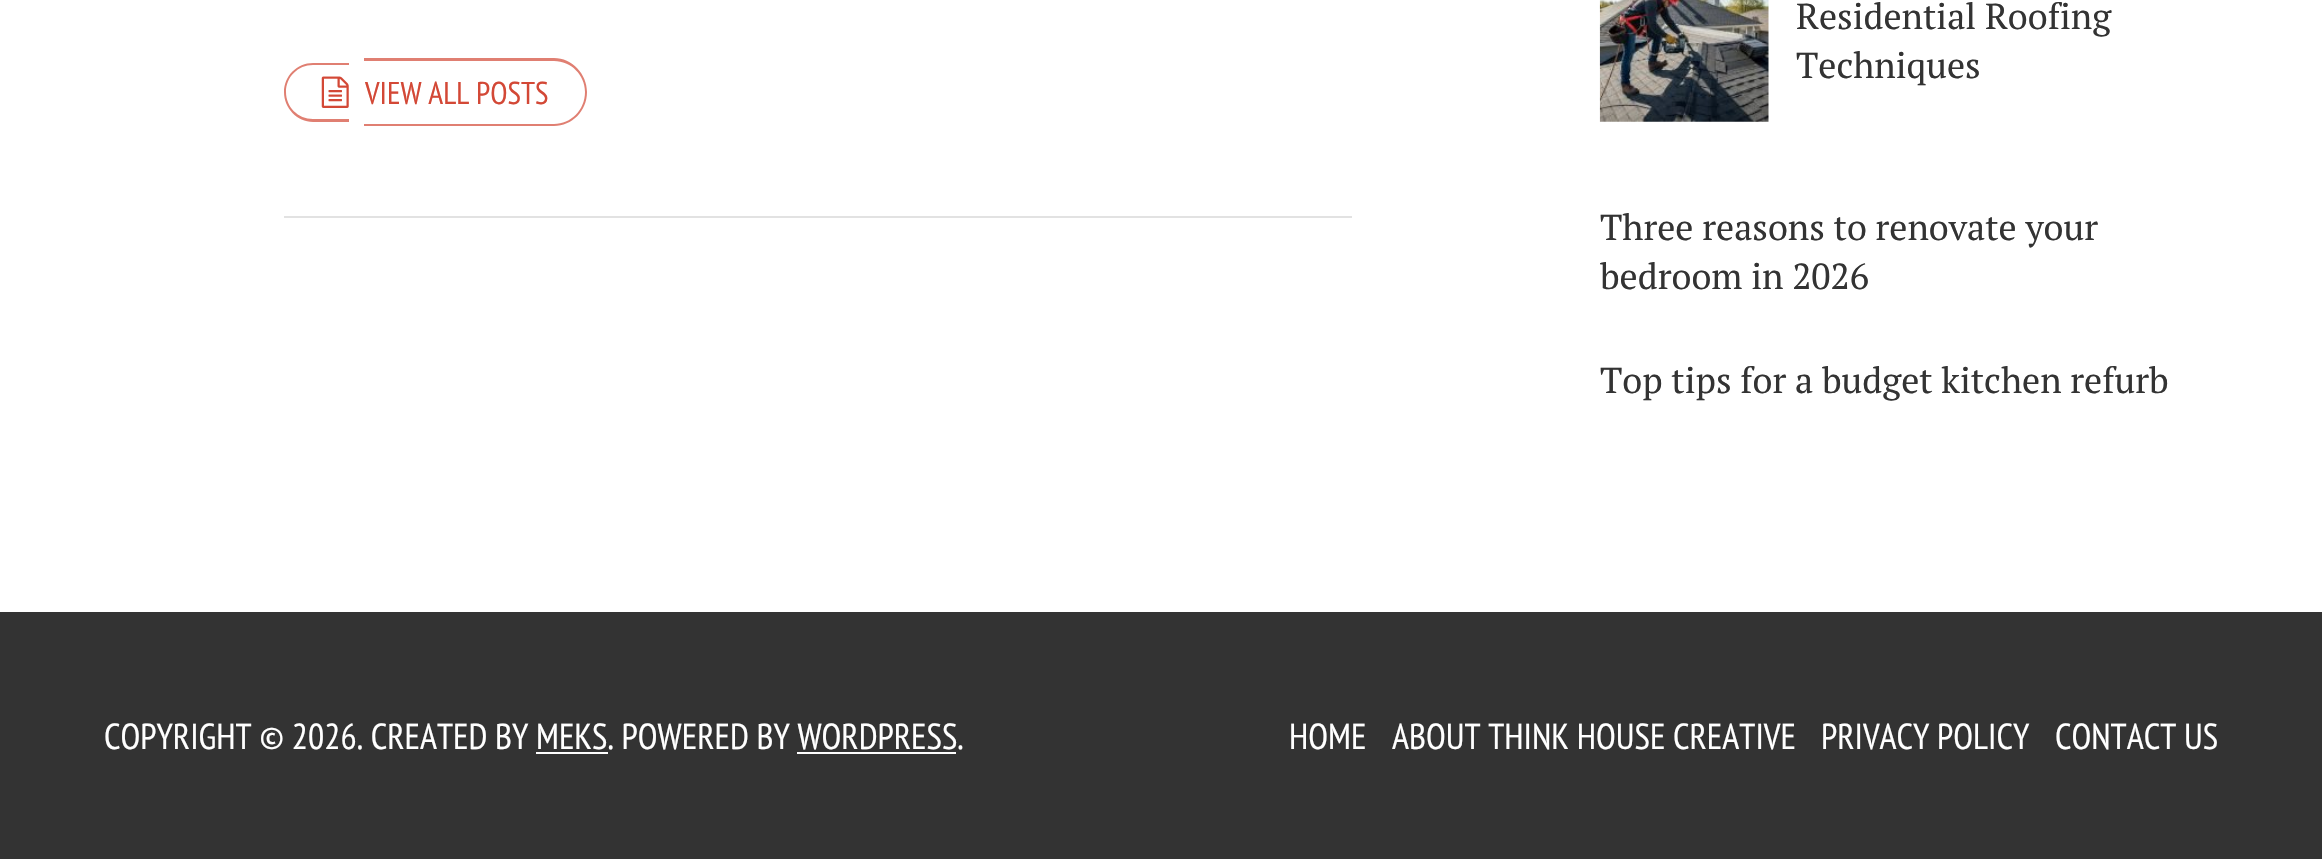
static SkFont makeFont(const char* family, int weight, float size, bool italic = false) {
  SkFontStyle style(weight, SkFontStyle::kNormal_Width,
    italic ? SkFontStyle::kItalic_Slant : SkFontStyle::kUpright_Slant);
  SkFont result(fontMgr->matchFamilyStyle(family, style), size);
  result.setSubpixel(true);
  return result;
}

static void text(SkCanvas* c, const char* s, float x, float y, const SkFont& font, SkColor color) {
  SkPaint ink(SkColor4f::FromColor(color));
  ink.setAntiAlias(true);
  c->drawString(s, x, y, font, ink);
}

static void box(SkCanvas* c, float l, float t, float r, float b, SkColor color) {
  SkPaint ink(SkColor4f::FromColor(color));
  ink.setAntiAlias(true);
  c->drawRect(SkRect::MakeLTRB(l, t, r, b), ink);
}

static void picture(SkCanvas* c, const char* path, float l, float t, float r, float b) {
  auto image = SkImages::DeferredFromEncodedData(SkData::MakeFromFileName(path));
  c->drawImageRect(image, SkRect::MakeLTRB(l, t, r, b), SkSamplingOptions());
}

void draw(SkCanvas* c) {
  SkPaint paint;
  paint.setAntiAlias(true);
  c->clear(0xffffffff);
  paint.setColor(0xffe07f72);
  c->drawPath(SkPathBuilder(SkPathFillType::kEvenOdd).moveTo(313, 63).lineTo(349, 63).lineTo(349, 122).lineTo(313, 122).cubicTo(297, 122, 284, 108, 284, 92).cubicTo(284, 76, 297, 63, 313, 63).close().moveTo(313, 65).lineTo(349, 65).lineTo(349, 119).lineTo(313, 119).cubicTo(298, 119, 286, 107, 286, 92).cubicTo(286, 77, 298, 65, 313, 65).close().detach(), paint);
  picture(c, "img_01.png", 321, 76, 349, 108);
  c->drawPath(SkPathBuilder(SkPathFillType::kEvenOdd).moveTo(364, 58).lineTo(554, 58).cubicTo(572, 58, 587, 74, 587, 92).cubicTo(587, 111, 572, 126, 554, 126).lineTo(364, 126).close().moveTo(364, 61).lineTo(554, 61).cubicTo(571, 61, 585, 75, 585, 92).cubicTo(585, 110, 571, 124, 554, 124).lineTo(364, 124).close().detach(), paint);
  SkFont face1 = makeFont("PT Sans Narrow", 400, 31.5f);
  text(c, "VIEW ALL POSTS", 365, 104, face1, 0xffd34836);
  box(c, 284, 216, 1352, 218, 0xffe2e2e2);
  picture(c, "img_02.png", 1599, 0, 1769, 122);
  SkFont face2 = makeFont("PT Serif", 400, 36);
  text(c, "Residential Roofing", 1796, 29, face2, 0xff333333);
  text(c, "Techniques", 1796, 78, face2, 0xff333333);
  text(c, "Three reasons to renovate your", 1600, 240, face2, 0xff333333);
  text(c, "bedroom in 2026", 1600, 289, face2, 0xff333333);
  text(c, "Top tips for a budget kitchen refurb", 1600, 393, face2, 0xff333333);
  box(c, 0, 612, 2322, 859, 0xff333333);
  SkFont face3 = makeFont("PT Sans Narrow", 400, 36);
  text(c, "COPYRIGHT © 2026. CREATED BY MEKS. POWERED BY WORDPRESS.", 104, 749, face3, 0xffffffff);
  box(c, 536, 752, 608, 754, 0xffffffff);
  box(c, 797, 752, 956, 754, 0xffffffff);
  text(c, "HOME", 1289, 749, face3, 0xffffffff);
  text(c, "ABOUT THINK HOUSE CREATIVE", 1392, 749, face3, 0xffffffff);
  text(c, "PRIVACY POLICY", 1821, 749, face3, 0xffffffff);
  text(c, "CONTACT US", 2055, 749, face3, 0xffffffff);
}
